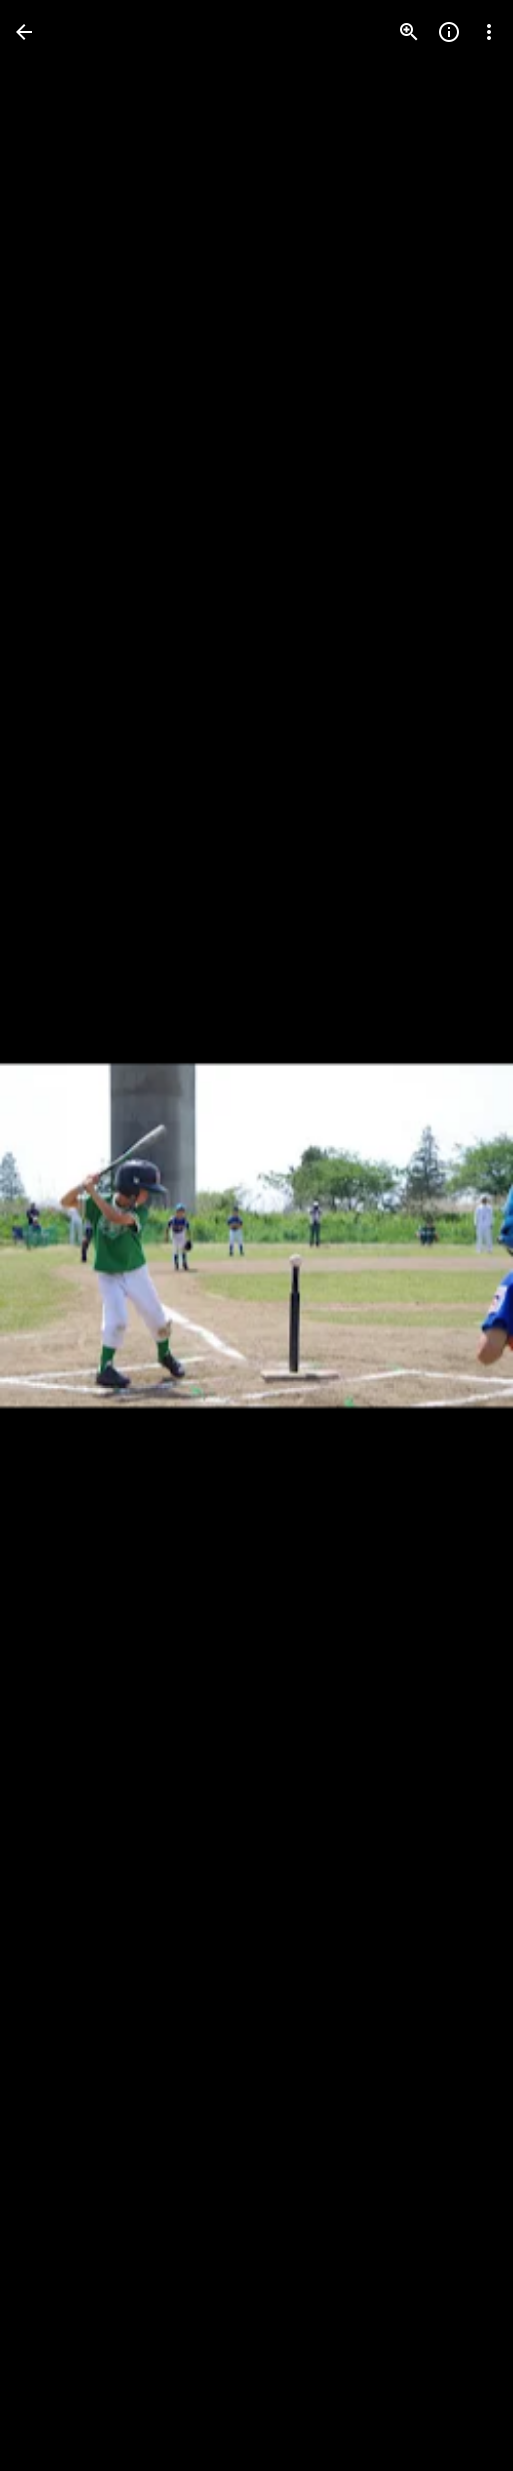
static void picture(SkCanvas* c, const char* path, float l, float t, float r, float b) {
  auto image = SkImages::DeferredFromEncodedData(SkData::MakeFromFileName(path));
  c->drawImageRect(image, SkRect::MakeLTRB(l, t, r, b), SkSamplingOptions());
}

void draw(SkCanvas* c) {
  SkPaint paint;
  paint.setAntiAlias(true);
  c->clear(0xff000000);
  picture(c, "img_01.png", 16, 24, 32, 40);
  picture(c, "img_02.png", 400, 23, 418, 41);
  picture(c, "img_03.png", 439, 22, 459, 42);
  picture(c, "img_04.png", 487, 24, 491, 40);
  picture(c, "img_05.png", 0, 1062, 513, 1409);
}
